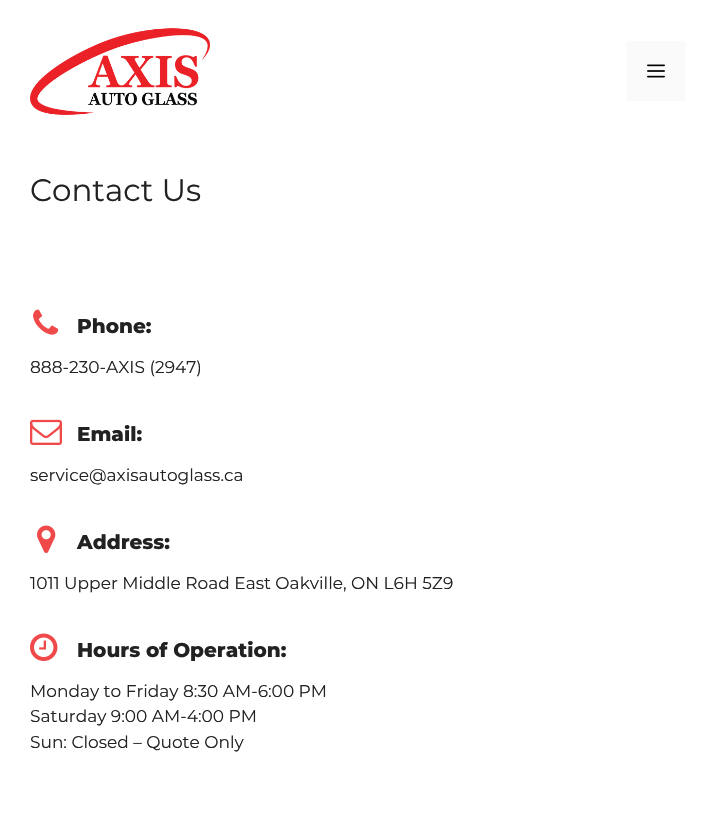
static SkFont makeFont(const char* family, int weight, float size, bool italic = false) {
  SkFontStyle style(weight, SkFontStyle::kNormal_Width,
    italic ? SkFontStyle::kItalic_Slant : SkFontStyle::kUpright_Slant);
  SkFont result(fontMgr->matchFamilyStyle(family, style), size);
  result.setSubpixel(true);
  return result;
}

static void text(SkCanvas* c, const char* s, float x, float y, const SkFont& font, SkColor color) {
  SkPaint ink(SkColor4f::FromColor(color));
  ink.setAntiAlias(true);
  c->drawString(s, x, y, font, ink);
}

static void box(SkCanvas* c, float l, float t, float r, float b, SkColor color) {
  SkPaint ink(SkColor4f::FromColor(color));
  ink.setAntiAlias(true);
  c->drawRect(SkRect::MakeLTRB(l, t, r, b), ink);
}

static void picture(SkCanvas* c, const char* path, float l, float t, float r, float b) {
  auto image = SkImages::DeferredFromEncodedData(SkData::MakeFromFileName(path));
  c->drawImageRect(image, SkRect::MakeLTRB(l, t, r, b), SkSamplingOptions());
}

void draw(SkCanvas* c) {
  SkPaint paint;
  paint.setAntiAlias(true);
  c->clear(0xffffffff);
  picture(c, "img_01.png", 30, 28, 210, 115);
  box(c, 627, 41, 685, 101, 0xfffafafa);
  picture(c, "img_02.png", 647, 64, 665, 78);
  SkFont face1 = makeFont("Montserrat", 400, 31);
  text(c, "Contact Us", 30, 201, face1, 0xff222222);
  picture(c, "img_03.png", 33, 309, 59, 335);
  SkFont face2 = makeFont("Montserrat", 800, 20);
  text(c, "Phone:", 77, 333, face2, 0xff222222);
  SkFont face3 = makeFont("Montserrat", 400, 17);
  text(c, "888-230-AXIS (2947)", 30, 373, face3, 0xff222222);
  picture(c, "img_04.png", 30, 419, 62, 445);
  text(c, "Email:", 77, 441, face2, 0xff222222);
  text(c, "service@axisautoglass.ca", 30, 481, face3, 0xff222222);
  picture(c, "img_05.png", 37, 525, 56, 553);
  text(c, "Address:", 77, 549, face2, 0xff222222);
  text(c, "1011 Upper Middle Road East Oakville, ON L6H 5Z9", 30, 589, face3, 0xff222222);
  picture(c, "img_06.png", 30, 633, 58, 661);
  text(c, "Hours of Operation:", 77, 657, face2, 0xff222222);
  text(c, "Monday to Friday 8:30 AM-6:00 PM", 30, 697, face3, 0xff222222);
  text(c, "Saturday 9:00 AM-4:00 PM", 30, 722, face3, 0xff222222);
  text(c, "Sun: Closed – Quote Only", 30, 748, face3, 0xff222222);
}
